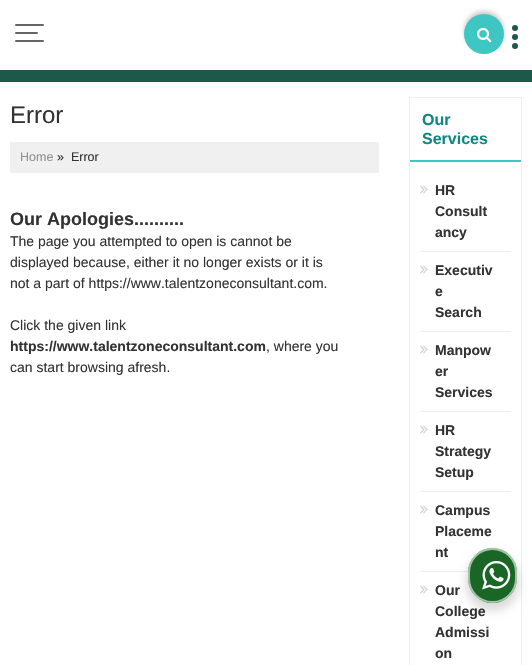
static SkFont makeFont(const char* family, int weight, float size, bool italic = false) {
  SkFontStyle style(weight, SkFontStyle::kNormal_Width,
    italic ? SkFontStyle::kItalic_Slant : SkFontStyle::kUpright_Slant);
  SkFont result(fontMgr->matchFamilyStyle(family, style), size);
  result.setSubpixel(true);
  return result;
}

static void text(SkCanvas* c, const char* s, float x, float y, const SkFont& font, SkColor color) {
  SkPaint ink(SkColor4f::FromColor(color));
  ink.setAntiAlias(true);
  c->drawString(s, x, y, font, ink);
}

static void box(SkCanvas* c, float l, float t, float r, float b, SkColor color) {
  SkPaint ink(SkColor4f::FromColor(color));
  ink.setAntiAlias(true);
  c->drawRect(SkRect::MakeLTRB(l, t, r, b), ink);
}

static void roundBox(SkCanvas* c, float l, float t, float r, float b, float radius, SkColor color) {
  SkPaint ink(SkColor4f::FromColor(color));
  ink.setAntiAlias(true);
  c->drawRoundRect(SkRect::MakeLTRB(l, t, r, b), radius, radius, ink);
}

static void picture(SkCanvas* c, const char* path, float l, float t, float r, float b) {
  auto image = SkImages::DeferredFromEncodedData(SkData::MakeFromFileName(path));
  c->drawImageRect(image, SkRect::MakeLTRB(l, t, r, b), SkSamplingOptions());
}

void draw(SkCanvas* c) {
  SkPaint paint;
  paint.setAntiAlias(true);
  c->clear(0xffffffff);
  paint.setColor(0x33000000);
  paint.setMaskFilter(SkMaskFilter::MakeBlur(kNormal_SkBlurStyle, 2));
  c->drawRoundRect(SkRect::MakeLTRB(464, 11, 504, 51), 20, 20, paint);
  paint.setMaskFilter(nullptr);
  paint.setColor(0xff3ec7c2);
  c->drawCircle(484, 34, 20, paint);
  picture(c, "img_01.png", 477, 27, 492, 43);
  paint.setColor(0xff1c594b);
  c->drawCircle(515, 37, 3, paint);
  c->drawCircle(515, 28, 3, paint);
  c->drawCircle(515, 46, 3, paint);
  box(c, 0, 70, 532, 82, 0xff1c594b);
  roundBox(c, 15, 24, 44, 26, 1, 0xff666666);
  roundBox(c, 15, 32, 38, 34, 1, 0xff666666);
  roundBox(c, 15, 40, 44, 42, 1, 0xff666666);
  SkFont face1 = makeFont("Liberation Sans", 400, 24);
  text(c, "Error", 10, 123, face1, 0xff333333);
  box(c, 10, 142, 379, 173, 0xfff0f0f0);
  SkFont face2 = makeFont("Liberation Sans", 400, 12.5f);
  text(c, "Home", 20, 161, face2, 0xff909090);
  text(c, "»  Error", 57, 161, face2, 0xff333333);
  SkFont face3 = makeFont("Liberation Sans", 700, 18);
  text(c, "Our Apologies..........", 10, 225, face3, 0xff333333);
  SkFont face4 = makeFont("Liberation Sans", 400, 14);
  text(c, "The page you attempted to open is cannot be", 10, 246, face4, 0xff333333);
  text(c, "displayed because, either it no longer exists or it is", 10, 267, face4, 0xff333333);
  text(c, "not a part of https://www.talentzoneconsultant.com.", 10, 288, face4, 0xff333333);
  text(c, "Click the given link", 10, 330, face4, 0xff333333);
  SkFont face5 = makeFont("Liberation Sans", 700, 14);
  text(c, "https://www.talentzoneconsultant.com", 10, 351, face5, 0xff333333);
  text(c, ", where you", 266, 351, face4, 0xff333333);
  text(c, "can start browsing afresh.", 10, 372, face4, 0xff333333);
  paint.setStyle(SkPaint::kStroke_Style);
  paint.setStrokeWidth(1);
  paint.setColor(0xffededed);
  c->drawRect(SkRect::MakeLTRB(409.5f, 97.5f, 521.5f, 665.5f), paint);
  box(c, 410, 160, 521, 162, 0xff3ec7c2);
  SkFont face6 = makeFont("Liberation Sans", 700, 16);
  text(c, "Our", 422, 125, face6, 0xff118783);
  text(c, "Services", 422, 144, face6, 0xff118783);
  box(c, 420, 251, 511, 252, 0xffededed);
  picture(c, "img_02.png", 420, 185, 428, 194);
  text(c, "HR", 435, 195, face5, 0xff333333);
  text(c, "Consult", 435, 216, face5, 0xff333333);
  text(c, "ancy", 435, 237, face5, 0xff333333);
  box(c, 420, 331, 511, 332, 0xffededed);
  picture(c, "img_02.png", 420, 265, 428, 274);
  text(c, "Executiv", 435, 275, face5, 0xff333333);
  text(c, "e", 435, 296, face5, 0xff333333);
  text(c, "Search", 435, 317, face5, 0xff333333);
  box(c, 420, 411, 511, 412, 0xffededed);
  picture(c, "img_02.png", 420, 345, 428, 354);
  text(c, "Manpow", 435, 355, face5, 0xff333333);
  text(c, "er", 435, 376, face5, 0xff333333);
  text(c, "Services", 435, 397, face5, 0xff333333);
  box(c, 420, 491, 511, 492, 0xffededed);
  picture(c, "img_02.png", 420, 425, 428, 434);
  text(c, "HR", 435, 435, face5, 0xff333333);
  text(c, "Strategy", 435, 456, face5, 0xff333333);
  text(c, "Setup", 435, 477, face5, 0xff333333);
  box(c, 420, 571, 469, 572, 0xffededed);
  picture(c, "img_02.png", 420, 505, 428, 514);
  text(c, "Campus", 435, 515, face5, 0xff333333);
  text(c, "Placeme", 435, 536, face5, 0xff333333);
  text(c, "nt", 435, 557, face5, 0xff333333);
  picture(c, "img_02.png", 420, 585, 428, 594);
  text(c, "Our", 435, 595, face5, 0xff333333);
  text(c, "College", 435, 616, face5, 0xff333333);
  text(c, "Admissi", 435, 637, face5, 0xff333333);
  text(c, "on", 435, 658, face5, 0xff333333);
  paint.setStyle(SkPaint::kFill_Style);
  paint.setColor(0x24000000);
  paint.setMaskFilter(SkMaskFilter::MakeBlur(kNormal_SkBlurStyle, 4));
  c->drawRoundRect(SkRect::MakeLTRB(466, 552, 519, 611), 26.5f, 26.5f, paint);
  paint.setMaskFilter(nullptr);
  roundBox(c, 468, 548, 517, 603, 24.5f, 0xff196626);
  paint.setStyle(SkPaint::kStroke_Style);
  paint.setStrokeWidth(2);
  paint.setColor(0x99ffffff);
  c->drawRoundRect(SkRect::MakeLTRB(469, 549, 516, 602), 23.5f, 23.5f, paint);
  picture(c, "img_03.png", 482, 561, 511, 590);
}
